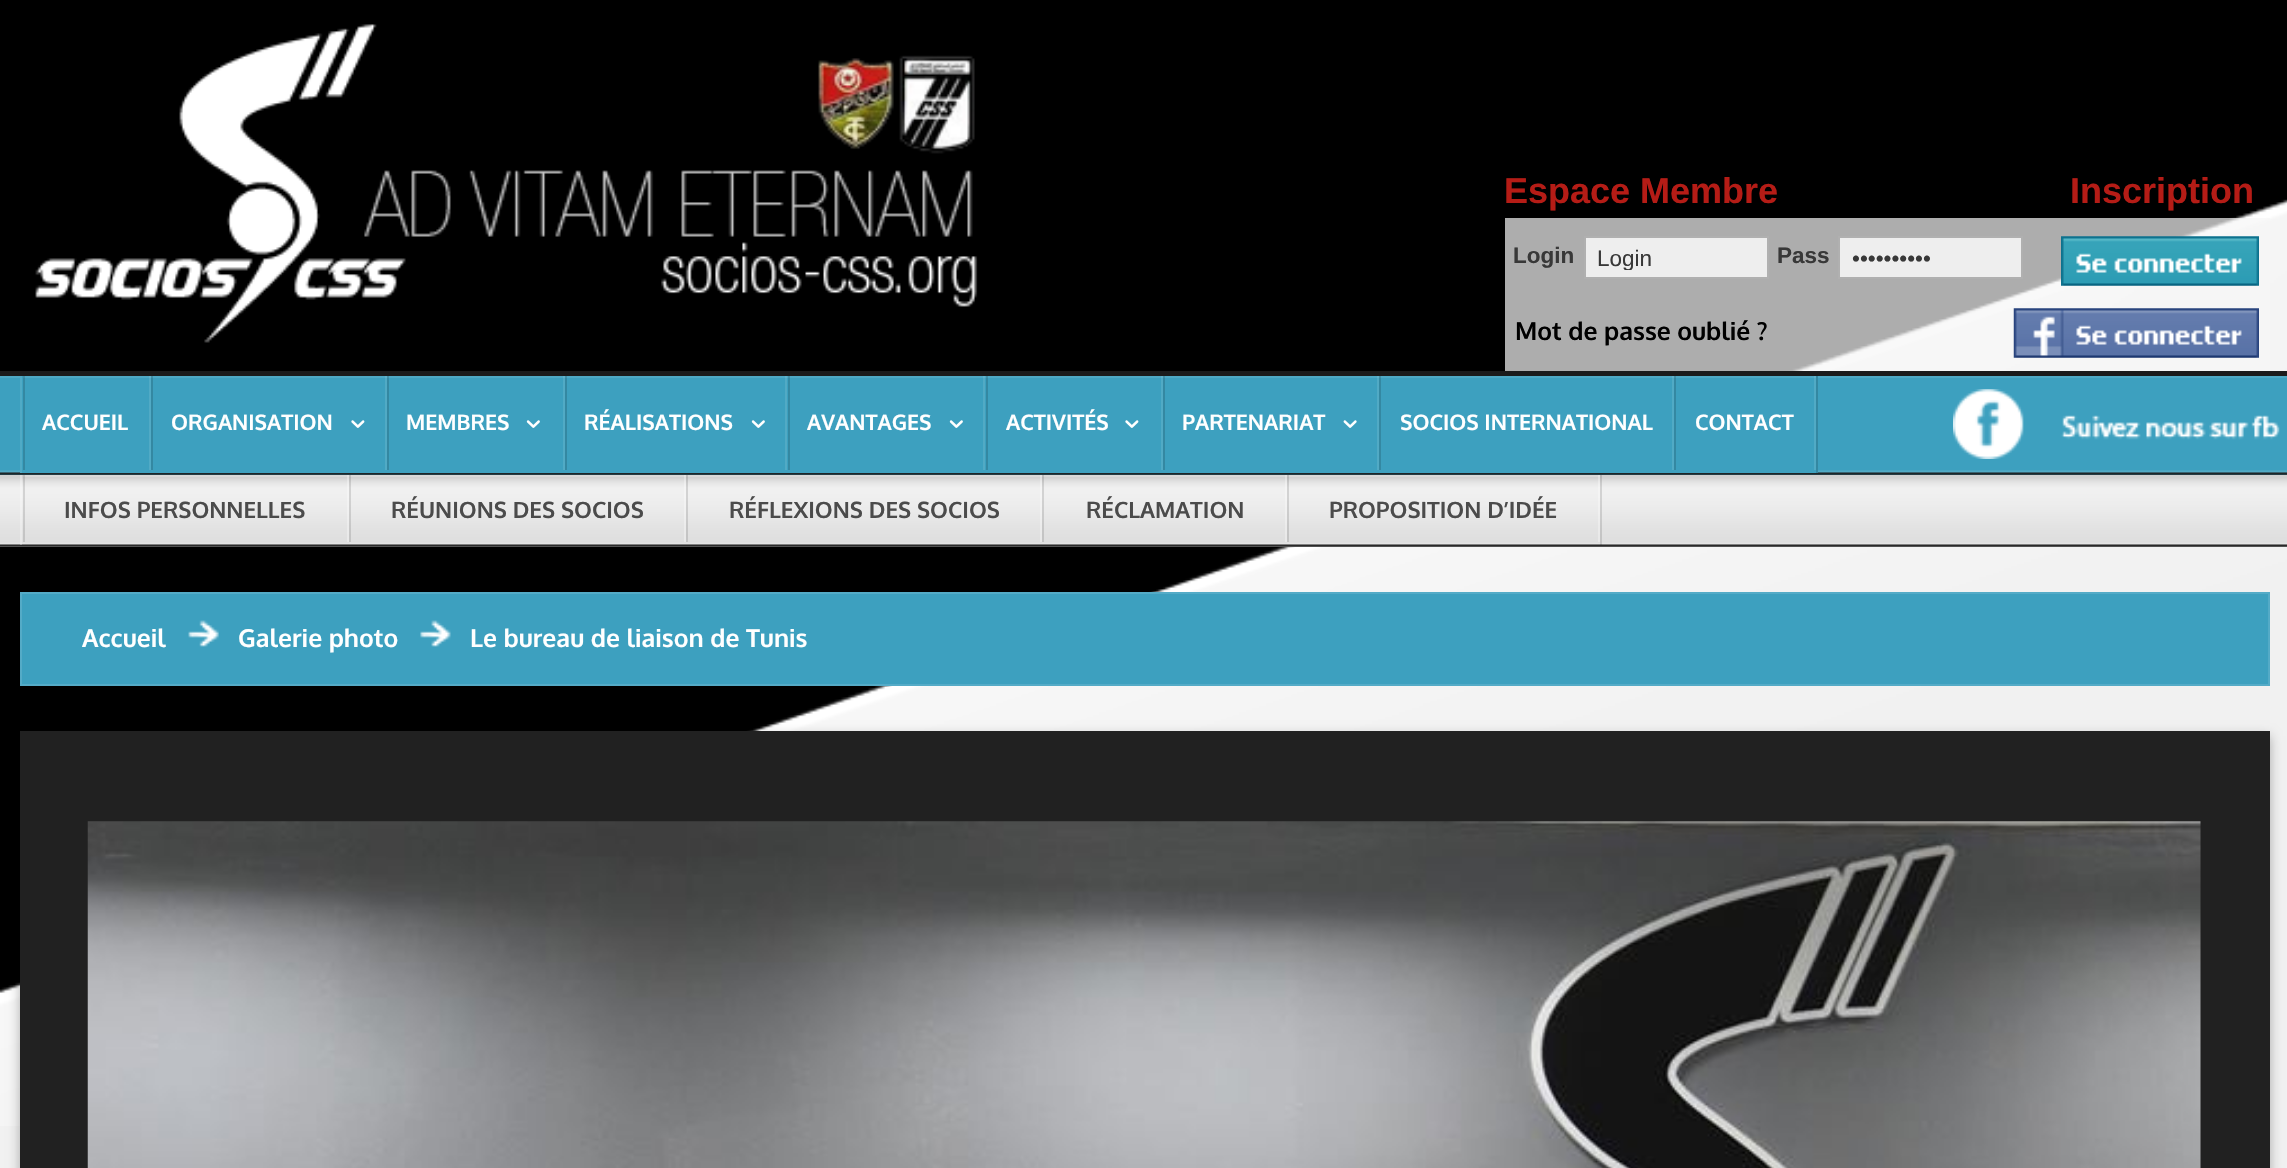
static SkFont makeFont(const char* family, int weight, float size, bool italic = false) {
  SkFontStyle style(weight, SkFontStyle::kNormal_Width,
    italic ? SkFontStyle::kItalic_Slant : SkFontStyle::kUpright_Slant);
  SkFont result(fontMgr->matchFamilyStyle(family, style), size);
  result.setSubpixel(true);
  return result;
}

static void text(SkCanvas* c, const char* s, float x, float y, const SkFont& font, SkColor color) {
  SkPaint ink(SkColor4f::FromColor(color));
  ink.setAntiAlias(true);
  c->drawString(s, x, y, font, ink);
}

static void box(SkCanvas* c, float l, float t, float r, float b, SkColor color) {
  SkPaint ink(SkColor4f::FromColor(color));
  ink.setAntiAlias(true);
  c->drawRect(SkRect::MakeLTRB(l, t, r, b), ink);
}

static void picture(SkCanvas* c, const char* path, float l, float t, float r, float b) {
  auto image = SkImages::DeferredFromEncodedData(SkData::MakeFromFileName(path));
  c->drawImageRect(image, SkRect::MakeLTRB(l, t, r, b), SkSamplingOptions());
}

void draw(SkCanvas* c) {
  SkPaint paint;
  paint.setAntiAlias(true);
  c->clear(0xfff1f1f1);
  picture(c, "img_01.png", 0, 0, 2287, 1126);
  picture(c, "img_02.png", 35, 24, 978, 343);
  SkFont face1 = makeFont("Liberation Sans", 700, 36);
  text(c, "Espace Membre", 1504, 203, face1, 0xffb51c16);
  text(c, "Inscription", 2070, 203, face1, 0xffb51c16);
  box(c, 1505, 218, 2270, 371, 0xb3f6f6f6);
  SkFont face2 = makeFont("Liberation Sans", 700, 22.5f);
  text(c, "Login", 1513, 263, face2, 0xff383838);
  paint.setColor(0xffeeeeee);
  c->drawRect(SkRect::MakeLTRB(1585, 237, 1768, 278), paint);
  paint.setStyle(SkPaint::kStroke_Style);
  paint.setStrokeWidth(2);
  paint.setColor(0xffb0b0b0);
  c->drawRect(SkRect::MakeLTRB(1585, 237, 1768, 278), paint);
  c->save();
  c->clipRect(SkRect::MakeLTRB(1598, 245, 1766, 270));
  SkFont face3 = makeFont("Liberation Sans", 400, 22.5f);
  text(c, "Login", 1597, 266, face3, 0xff383838);
  c->restore();
  text(c, "Pass", 1777, 263, face2, 0xff383838);
  paint.setStyle(SkPaint::kFill_Style);
  paint.setColor(0xffeeeeee);
  c->drawRect(SkRect::MakeLTRB(1839, 237, 2022, 278), paint);
  paint.setStyle(SkPaint::kStroke_Style);
  paint.setColor(0xffb0b0b0);
  c->drawRect(SkRect::MakeLTRB(1839, 237, 2022, 278), paint);
  text(c, "••••••••••", 1852, 266, face3, 0xff383838);
  picture(c, "img_03.png", 2061, 236, 2259, 286);
  SkFont face4 = makeFont("Oxygen", 700, 24.75f);
  text(c, "Mot de passe oublié ?", 1515, 340, face4, 0xff000000);
  picture(c, "img_04.png", 2013, 308, 2259, 358);
  box(c, 0, 378, 2287, 475, 0xff3da0bf);
  picture(c, "img_05.png", 0, 470, 2287, 475);
  box(c, 0, 376, 2287, 378, 0xff4ea9c5);
  box(c, 0, 371, 2287, 376, 0xff1b1b1b);
  box(c, 22, 376, 1816, 473, 0xff3da0bf);
  box(c, 1816, 376, 1818, 473, 0xff3488a2);
  box(c, 20, 376, 22, 473, 0xff50aac5);
  box(c, 23, 376, 1816, 378, 0xff4ea9c5);
  box(c, 149, 376, 151, 470, 0x1affffff);
  box(c, 23, 376, 25, 470, 0x26000000);
  SkFont face5 = makeFont("Oxygen", 700, 21.4f);
  text(c, "ACCUEIL", 42, 430, face5, 0xffffffff);
  box(c, 385, 376, 387, 470, 0x1affffff);
  box(c, 151, 376, 153, 470, 0x26000000);
  text(c, "ORGANISATION", 171, 430, face5, 0xffffffff);
  picture(c, "img_06.png", 351, 420, 365, 428);
  box(c, 563, 376, 565, 470, 0x1affffff);
  box(c, 387, 376, 389, 470, 0x26000000);
  text(c, "MEMBRES", 406, 430, face5, 0xffffffff);
  picture(c, "img_07.png", 526, 420, 540, 428);
  box(c, 785, 376, 787, 470, 0x1affffff);
  box(c, 565, 376, 567, 470, 0x26000000);
  text(c, "RÉALISATIONS", 584, 430, face5, 0xffffffff);
  picture(c, "img_07.png", 751, 420, 765, 428);
  box(c, 983, 376, 985, 470, 0x1affffff);
  box(c, 788, 376, 790, 470, 0x26000000);
  text(c, "AVANTAGES", 807, 430, face5, 0xffffffff);
  picture(c, "img_07.png", 949, 420, 963, 428);
  box(c, 1161, 376, 1163, 470, 0x1affffff);
  box(c, 986, 376, 988, 470, 0x26000000);
  text(c, "ACTIVITÉS", 1006, 430, face5, 0xffffffff);
  picture(c, "img_06.png", 1125, 420, 1139, 428);
  box(c, 1377, 376, 1379, 470, 0x1affffff);
  box(c, 1163, 376, 1165, 470, 0x26000000);
  text(c, "PARTENARIAT", 1182, 430, face5, 0xffffffff);
  picture(c, "img_08.png", 1343, 420, 1357, 428);
  box(c, 1672, 376, 1674, 470, 0x1affffff);
  box(c, 1379, 376, 1381, 470, 0x26000000);
  text(c, "SOCIOS INTERNATIONAL", 1400, 430, face5, 0xffffffff);
  box(c, 1814, 376, 1816, 470, 0x1affffff);
  box(c, 1674, 376, 1676, 470, 0x26000000);
  text(c, "CONTACT", 1695, 430, face5, 0xffffffff);
  picture(c, "img_09.png", 1953, 389, 2280, 459);
  box(c, 0, 477, 2287, 547, 0xfff0f0f0);
  picture(c, "img_10.png", 0, 477, 2287, 547);
  box(c, 0, 475, 2287, 477, 0xffd1d1d1);
  box(c, 1600, 475, 1602, 545, 0x1f000000);
  box(c, 20, 475, 22, 545, 0x4dffffff);
  box(c, 23, 475, 1600, 477, 0xffd9d9d9);
  box(c, 347, 475, 349, 542, 0x4dffffff);
  box(c, 23, 475, 25, 542, 0x1f000000);
  SkFont face6 = makeFont("Oxygen", 700, 22.5f);
  text(c, "INFOS PERSONNELLES", 64, 518, face6, 0xff4b4b4b);
  box(c, 684, 475, 686, 542, 0x4dffffff);
  box(c, 349, 475, 351, 542, 0x1f000000);
  text(c, "RÉUNIONS DES SOCIOS", 391, 518, face6, 0xff4b4b4b);
  box(c, 1040, 475, 1042, 542, 0x4dffffff);
  box(c, 686, 475, 688, 542, 0x1f000000);
  text(c, "RÉFLEXIONS DES SOCIOS", 729, 518, face6, 0xff4b4b4b);
  box(c, 1285, 475, 1287, 542, 0x4dffffff);
  box(c, 1042, 475, 1044, 542, 0x1f000000);
  text(c, "RÉCLAMATION", 1086, 518, face6, 0xff4b4b4b);
  box(c, 1598, 475, 1600, 542, 0x4dffffff);
  box(c, 1287, 475, 1289, 542, 0x1f000000);
  text(c, "PROPOSITION D’IDÉE", 1329, 518, face6, 0xff4b4b4b);
  paint.setStyle(SkPaint::kFill_Style);
  paint.setColor(0xff3da0bf);
  c->drawRect(SkRect::MakeLTRB(21, 593, 2269, 685), paint);
  paint.setStyle(SkPaint::kStroke_Style);
  paint.setColor(0xff54abc7);
  c->drawRect(SkRect::MakeLTRB(21, 593, 2269, 685), paint);
  text(c, "Accueil", 82, 647, face4, 0xffffffff);
  picture(c, "img_11.png", 188, 620, 219, 647);
  text(c, "Galerie photo", 238, 647, face4, 0xffffffff);
  picture(c, "img_12.png", 420, 620, 451, 647);
  text(c, "Le bureau de liaison de Tunis", 470, 647, face4, 0xffffffff);
  paint.setStyle(SkPaint::kFill_Style);
  paint.setColor(0x4d000000);
  paint.setMaskFilter(SkMaskFilter::MakeBlur(kNormal_SkBlurStyle, 5.5f));
  c->drawRect(SkRect::MakeLTRB(20, 736, 2270, 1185), paint);
  paint.setMaskFilter(nullptr);
  box(c, 20, 731, 2270, 1168, 0xff212121);
  picture(c, "img_13.png", 87, 821, 2201, 1168);
}
